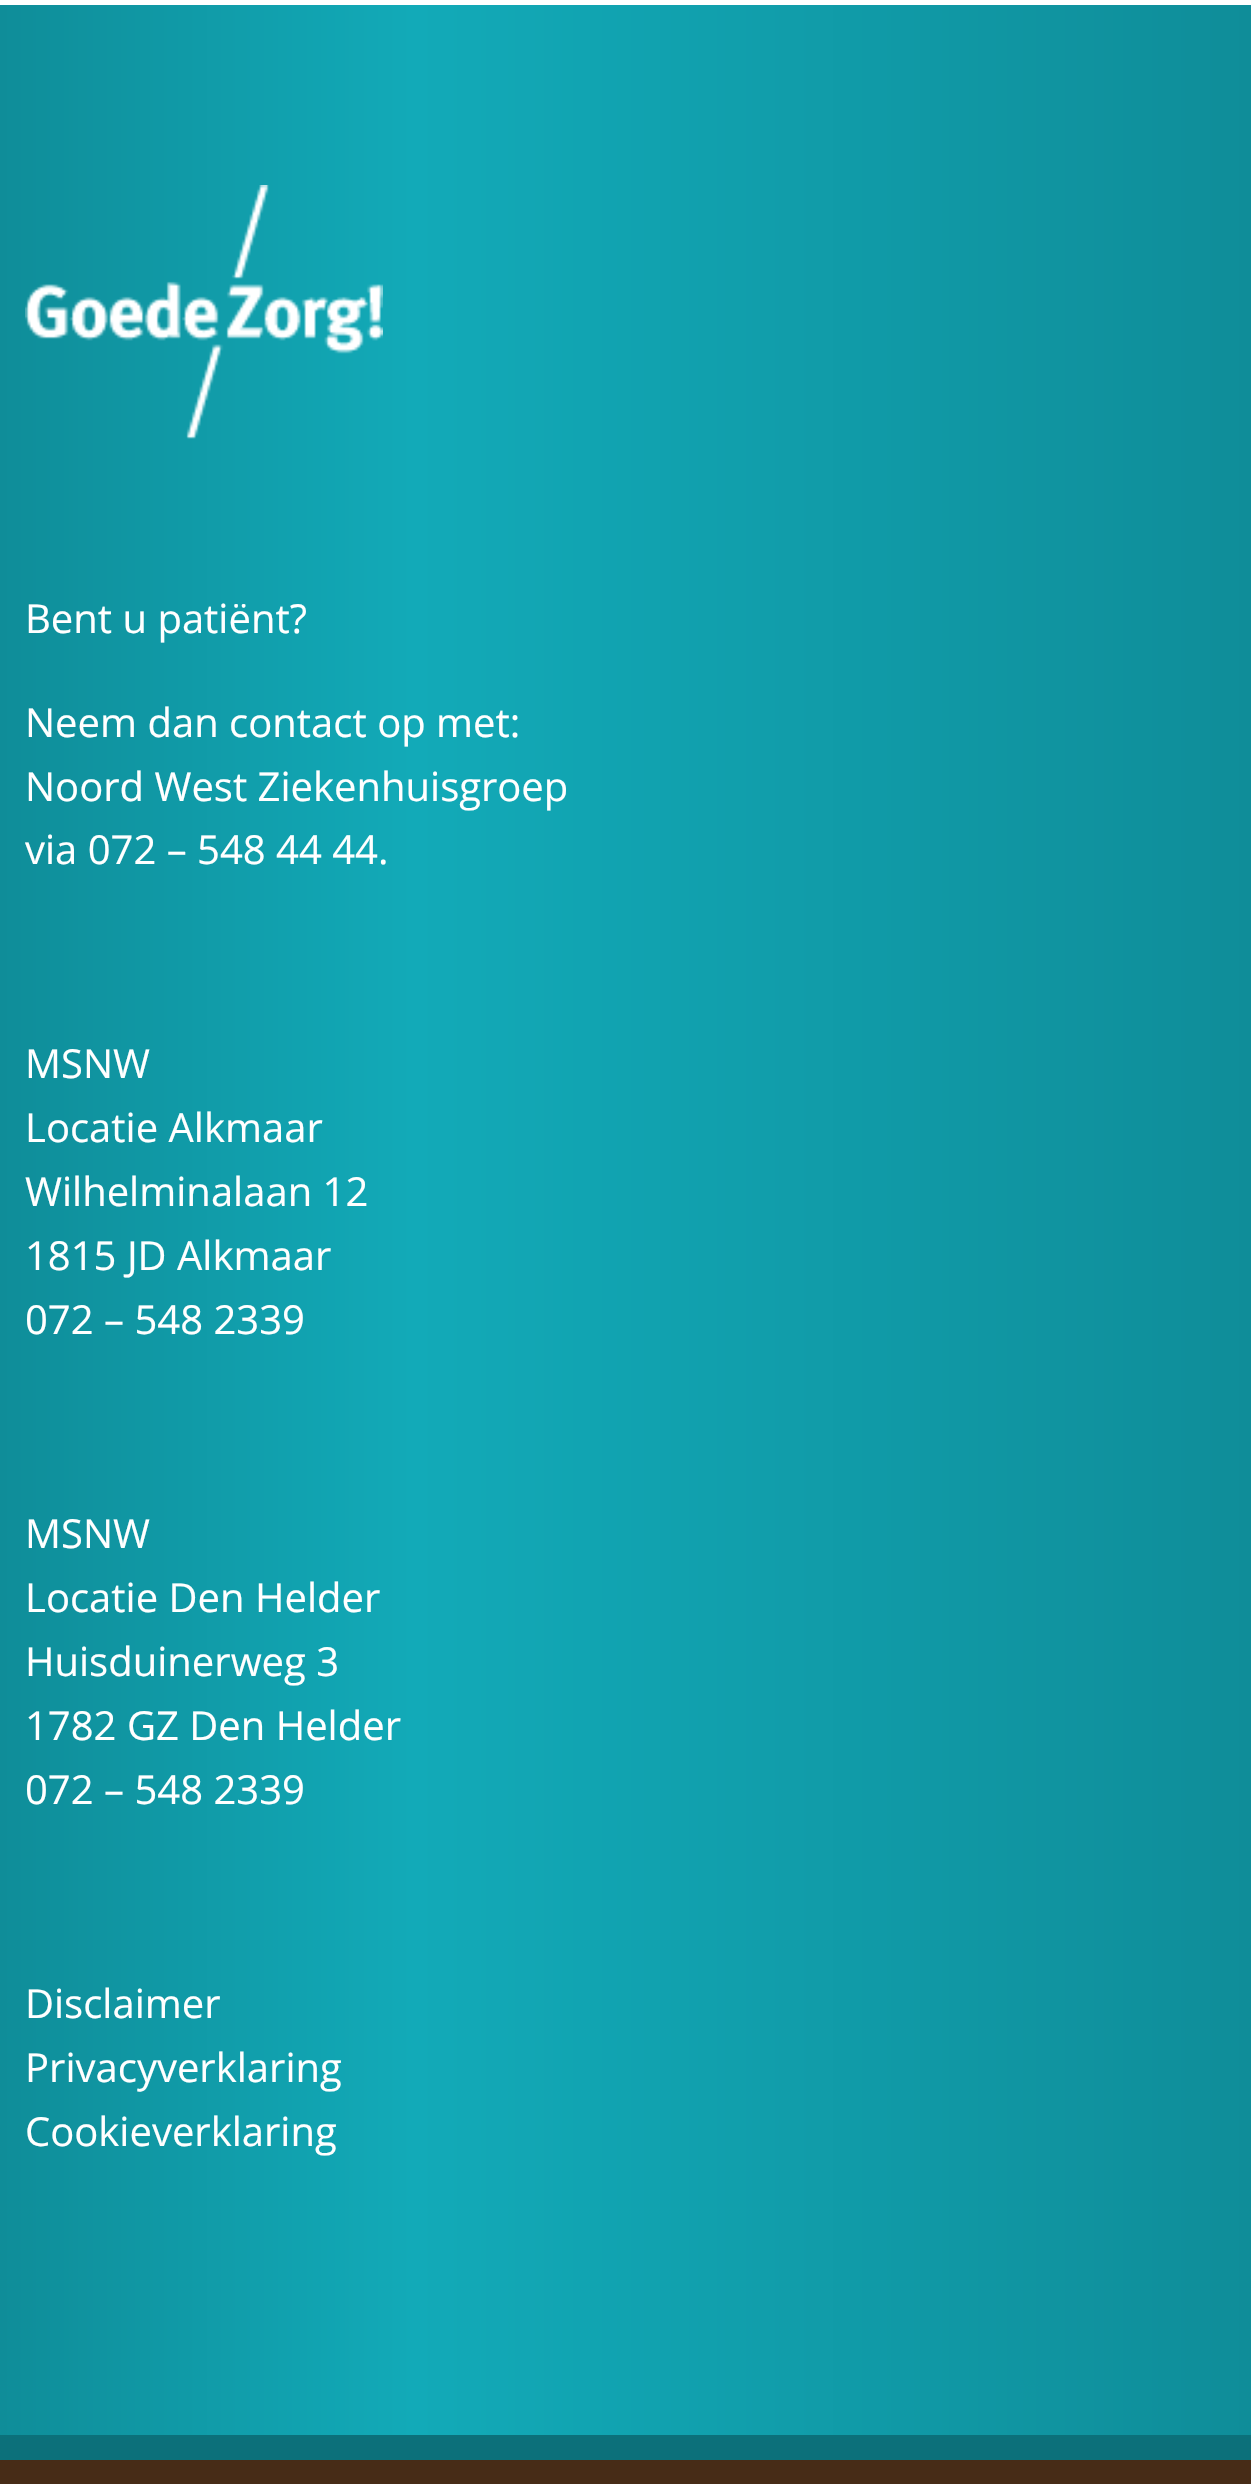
static SkFont makeFont(const char* family, int weight, float size, bool italic = false) {
  SkFontStyle style(weight, SkFontStyle::kNormal_Width,
    italic ? SkFontStyle::kItalic_Slant : SkFontStyle::kUpright_Slant);
  SkFont result(fontMgr->matchFamilyStyle(family, style), size);
  result.setSubpixel(true);
  return result;
}

static void text(SkCanvas* c, const char* s, float x, float y, const SkFont& font, SkColor color) {
  SkPaint ink(SkColor4f::FromColor(color));
  ink.setAntiAlias(true);
  c->drawString(s, x, y, font, ink);
}

static void box(SkCanvas* c, float l, float t, float r, float b, SkColor color) {
  SkPaint ink(SkColor4f::FromColor(color));
  ink.setAntiAlias(true);
  c->drawRect(SkRect::MakeLTRB(l, t, r, b), ink);
}

static void picture(SkCanvas* c, const char* path, float l, float t, float r, float b) {
  auto image = SkImages::DeferredFromEncodedData(SkData::MakeFromFileName(path));
  c->drawImageRect(image, SkRect::MakeLTRB(l, t, r, b), SkSamplingOptions());
}

void draw(SkCanvas* c) {
  SkPaint paint;
  paint.setAntiAlias(true);
  c->clear(0xff472c17);
  box(c, 0, 0, 1251, 5, 0xffffffff);
  {
    const SkColor colors[] = {0xff0f8d99, 0xff12aab8, 0xff0f8d99};
    const float stops[] = {0, 0.33f, 1};
    const SkPoint ends[] = {{0, 1220}, {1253, 1220}};
    paint.setShader(SkGradientShader::MakeLinear(ends, colors, stops, 3, SkTileMode::kClamp));
    paint.setAlpha(255);
  }
  c->drawRect(SkRect::MakeLTRB(0, 5, 1251, 2435), paint);
  box(c, 0, 2435, 1251, 2460, 0xff0c707a);
  picture(c, "img_01.png", 25, 185, 383, 439);
  SkFont face1 = makeFont("Open Sans", 400, 40);
  text(c, "Bent u patiënt?", 25, 633, face1, 0xffffffff);
  text(c, "Neem dan contact op met:", 25, 737, face1, 0xffffffff);
  text(c, "Noord West Ziekenhuisgroep", 25, 801, face1, 0xffffffff);
  text(c, "via 072 – 548 44 44.", 25, 864, face1, 0xffffffff);
  text(c, "MSNW", 25, 1078, face1, 0xffffffff);
  text(c, "Locatie Alkmaar", 25, 1142, face1, 0xffffffff);
  text(c, "Wilhelminalaan 12", 25, 1206, face1, 0xffffffff);
  text(c, "1815 JD Alkmaar", 25, 1270, face1, 0xffffffff);
  text(c, "072 – 548 2339", 25, 1334, face1, 0xffffffff);
  text(c, "MSNW", 25, 1548, face1, 0xffffffff);
  text(c, "Locatie Den Helder", 25, 1612, face1, 0xffffffff);
  text(c, "Huisduinerweg 3", 25, 1676, face1, 0xffffffff);
  text(c, "1782 GZ Den Helder", 25, 1740, face1, 0xffffffff);
  text(c, "072 – 548 2339", 25, 1804, face1, 0xffffffff);
  text(c, "Disclaimer", 25, 2018, face1, 0xffffffff);
  text(c, "Privacyverklaring", 25, 2082, face1, 0xffffffff);
  text(c, "Cookieverklaring", 25, 2146, face1, 0xffffffff);
}
